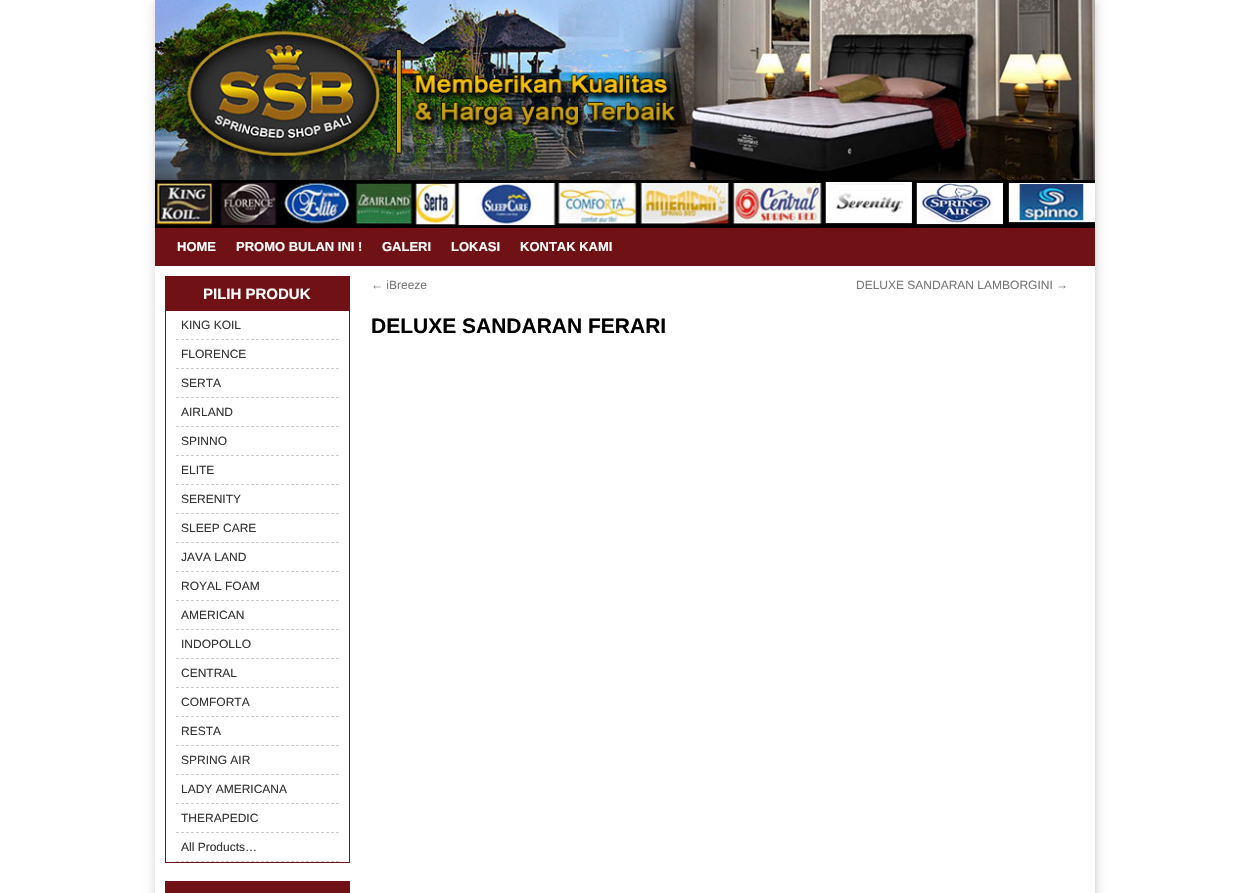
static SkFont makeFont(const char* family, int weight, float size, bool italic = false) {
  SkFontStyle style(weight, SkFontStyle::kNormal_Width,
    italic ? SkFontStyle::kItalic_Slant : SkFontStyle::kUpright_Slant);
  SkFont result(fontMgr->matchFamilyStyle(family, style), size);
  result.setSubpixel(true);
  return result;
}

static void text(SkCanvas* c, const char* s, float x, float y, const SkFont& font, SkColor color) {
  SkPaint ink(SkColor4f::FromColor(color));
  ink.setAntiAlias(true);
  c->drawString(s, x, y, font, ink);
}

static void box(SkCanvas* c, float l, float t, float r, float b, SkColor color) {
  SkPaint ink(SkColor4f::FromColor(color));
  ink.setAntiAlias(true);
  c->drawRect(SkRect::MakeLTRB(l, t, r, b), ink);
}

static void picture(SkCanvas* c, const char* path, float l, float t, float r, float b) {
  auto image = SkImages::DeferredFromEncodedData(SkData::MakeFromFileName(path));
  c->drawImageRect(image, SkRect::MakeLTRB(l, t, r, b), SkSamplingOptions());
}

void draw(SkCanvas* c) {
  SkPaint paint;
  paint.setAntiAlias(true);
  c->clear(0xffffffff);
  c->save();
  c->clipPath(SkPathBuilder(SkPathFillType::kEvenOdd).moveTo(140, 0).lineTo(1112, 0).lineTo(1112, 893).lineTo(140, 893).close().moveTo(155, 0).lineTo(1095, 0).lineTo(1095, 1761).lineTo(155, 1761).close().detach(), true);
  paint.setColor(0xffcccccc);
  paint.setMaskFilter(SkMaskFilter::MakeBlur(kNormal_SkBlurStyle, 5));
  c->drawRect(SkRect::MakeLTRB(156, 1, 1096, 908), paint);
  paint.setMaskFilter(nullptr);
  c->restore();
  box(c, 155, 227, 1095, 228, 0xff000000);
  picture(c, "img_01.png", 155, 0, 1095, 227);
  box(c, 155, 228, 1095, 266, 0xff701215);
  SkFont face1 = makeFont("Liberation Sans", 700, 13);
  text(c, "HOME", 177, 251, face1, 0xffffffff);
  text(c, "PROMO BULAN INI !", 236, 251, face1, 0xffffffff);
  text(c, "GALERI", 382, 251, face1, 0xffffffff);
  text(c, "LOKASI", 451, 251, face1, 0xffffffff);
  text(c, "KONTAK KAMI", 520, 251, face1, 0xffffffff);
  paint.setStyle(SkPaint::kStroke_Style);
  paint.setStrokeWidth(1);
  paint.setColor(0xff701215);
  c->drawRect(SkRect::MakeLTRB(165.5f, 276.5f, 349.5f, 862.5f), paint);
  box(c, 166, 277, 349, 311, 0xff701215);
  SkFont face2 = makeFont("Liberation Sans", 700, 15);
  text(c, "PILIH PRODUK", 203, 299, face2, 0xffffffff);
  paint.setColor(0xffcccccc);
  paint.setPathEffect(SkDashPathEffect::Make({{3, 2}}, 0));
  c->drawPath(SkPathBuilder().moveTo(176, 339.5f).lineTo(339, 339.5f).detach(), paint);
  paint.setPathEffect(nullptr);
  SkFont face3 = makeFont("Liberation Sans", 400, 12);
  text(c, "KING KOIL", 181, 329, face3, 0xff333333);
  paint.setPathEffect(SkDashPathEffect::Make({{3, 2}}, 0));
  c->drawPath(SkPathBuilder().moveTo(176, 368.5f).lineTo(339, 368.5f).detach(), paint);
  paint.setPathEffect(nullptr);
  text(c, "FLORENCE", 181, 358, face3, 0xff333333);
  paint.setPathEffect(SkDashPathEffect::Make({{3, 2}}, 0));
  c->drawPath(SkPathBuilder().moveTo(176, 397.5f).lineTo(339, 397.5f).detach(), paint);
  paint.setPathEffect(nullptr);
  text(c, "SERTA", 181, 387, face3, 0xff333333);
  paint.setPathEffect(SkDashPathEffect::Make({{3, 2}}, 0));
  c->drawPath(SkPathBuilder().moveTo(176, 426.5f).lineTo(339, 426.5f).detach(), paint);
  paint.setPathEffect(nullptr);
  text(c, "AIRLAND", 181, 416, face3, 0xff333333);
  paint.setPathEffect(SkDashPathEffect::Make({{3, 2}}, 0));
  c->drawPath(SkPathBuilder().moveTo(176, 455.5f).lineTo(339, 455.5f).detach(), paint);
  paint.setPathEffect(nullptr);
  text(c, "SPINNO", 181, 445, face3, 0xff333333);
  paint.setPathEffect(SkDashPathEffect::Make({{3, 2}}, 0));
  c->drawPath(SkPathBuilder().moveTo(176, 484.5f).lineTo(339, 484.5f).detach(), paint);
  paint.setPathEffect(nullptr);
  text(c, "ELITE", 181, 474, face3, 0xff333333);
  paint.setPathEffect(SkDashPathEffect::Make({{3, 2}}, 0));
  c->drawPath(SkPathBuilder().moveTo(176, 513.5f).lineTo(339, 513.5f).detach(), paint);
  paint.setPathEffect(nullptr);
  text(c, "SERENITY", 181, 503, face3, 0xff333333);
  paint.setPathEffect(SkDashPathEffect::Make({{3, 2}}, 0));
  c->drawPath(SkPathBuilder().moveTo(176, 542.5f).lineTo(339, 542.5f).detach(), paint);
  paint.setPathEffect(nullptr);
  text(c, "SLEEP CARE", 181, 532, face3, 0xff333333);
  paint.setPathEffect(SkDashPathEffect::Make({{3, 2}}, 0));
  c->drawPath(SkPathBuilder().moveTo(176, 571.5f).lineTo(339, 571.5f).detach(), paint);
  paint.setPathEffect(nullptr);
  text(c, "JAVA LAND", 181, 561, face3, 0xff333333);
  paint.setPathEffect(SkDashPathEffect::Make({{3, 2}}, 0));
  c->drawPath(SkPathBuilder().moveTo(176, 600.5f).lineTo(339, 600.5f).detach(), paint);
  paint.setPathEffect(nullptr);
  text(c, "ROYAL FOAM", 181, 590, face3, 0xff333333);
  paint.setPathEffect(SkDashPathEffect::Make({{3, 2}}, 0));
  c->drawPath(SkPathBuilder().moveTo(176, 629.5f).lineTo(339, 629.5f).detach(), paint);
  paint.setPathEffect(nullptr);
  text(c, "AMERICAN", 181, 619, face3, 0xff333333);
  paint.setPathEffect(SkDashPathEffect::Make({{3, 2}}, 0));
  c->drawPath(SkPathBuilder().moveTo(176, 658.5f).lineTo(339, 658.5f).detach(), paint);
  paint.setPathEffect(nullptr);
  text(c, "INDOPOLLO", 181, 648, face3, 0xff333333);
  paint.setPathEffect(SkDashPathEffect::Make({{3, 2}}, 0));
  c->drawPath(SkPathBuilder().moveTo(176, 687.5f).lineTo(339, 687.5f).detach(), paint);
  paint.setPathEffect(nullptr);
  text(c, "CENTRAL", 181, 677, face3, 0xff333333);
  paint.setPathEffect(SkDashPathEffect::Make({{3, 2}}, 0));
  c->drawPath(SkPathBuilder().moveTo(176, 716.5f).lineTo(339, 716.5f).detach(), paint);
  paint.setPathEffect(nullptr);
  text(c, "COMFORTA", 181, 706, face3, 0xff333333);
  paint.setPathEffect(SkDashPathEffect::Make({{3, 2}}, 0));
  c->drawPath(SkPathBuilder().moveTo(176, 745.5f).lineTo(339, 745.5f).detach(), paint);
  paint.setPathEffect(nullptr);
  text(c, "RESTA", 181, 735, face3, 0xff333333);
  paint.setPathEffect(SkDashPathEffect::Make({{3, 2}}, 0));
  c->drawPath(SkPathBuilder().moveTo(176, 774.5f).lineTo(339, 774.5f).detach(), paint);
  paint.setPathEffect(nullptr);
  text(c, "SPRING AIR", 181, 764, face3, 0xff333333);
  paint.setPathEffect(SkDashPathEffect::Make({{3, 2}}, 0));
  c->drawPath(SkPathBuilder().moveTo(176, 803.5f).lineTo(339, 803.5f).detach(), paint);
  paint.setPathEffect(nullptr);
  text(c, "LADY AMERICANA", 181, 793, face3, 0xff333333);
  paint.setPathEffect(SkDashPathEffect::Make({{3, 2}}, 0));
  c->drawPath(SkPathBuilder().moveTo(176, 832.5f).lineTo(339, 832.5f).detach(), paint);
  paint.setPathEffect(nullptr);
  text(c, "THERAPEDIC", 181, 822, face3, 0xff333333);
  paint.setPathEffect(SkDashPathEffect::Make({{3, 2}}, 0));
  c->drawPath(SkPathBuilder().moveTo(176, 861.5f).lineTo(339, 861.5f).detach(), paint);
  paint.setPathEffect(nullptr);
  text(c, "All Products…", 181, 851, face3, 0xff333333);
  paint.setColor(0xff701215);
  c->drawRect(SkRect::MakeLTRB(165.5f, 881.5f, 349.5f, 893.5f), paint);
  box(c, 166, 882, 349, 893, 0xff701215);
  text(c, "← iBreeze", 371, 289, face3, 0xff777777);
  text(c, "DELUXE SANDARAN LAMBORGINI →", 856, 289, face3, 0xff777777);
  SkFont face4 = makeFont("Liberation Sans", 700, 21);
  text(c, "DELUXE SANDARAN FERARI", 371, 333, face4, 0xff000000);
}
